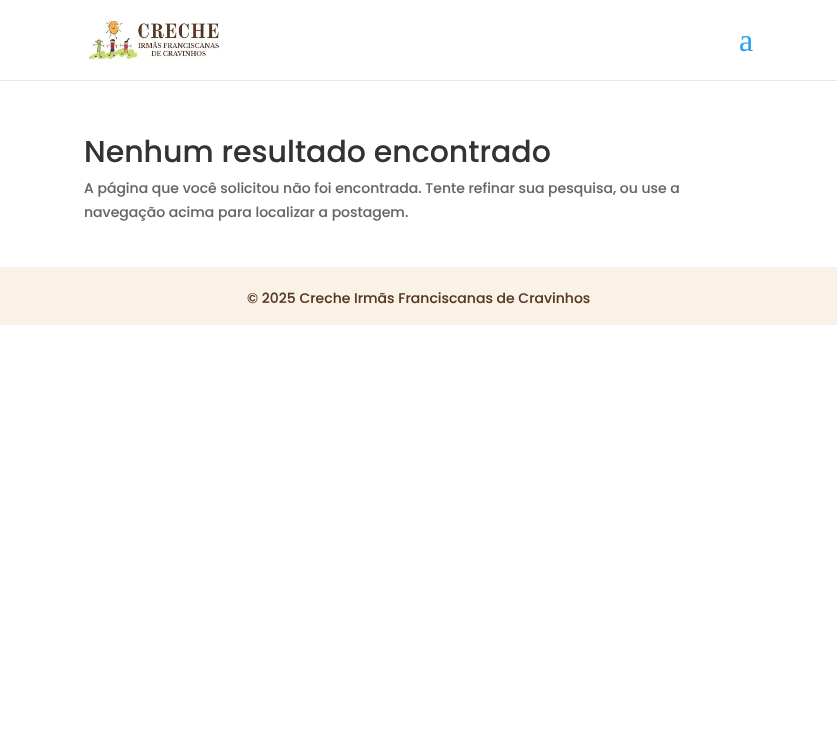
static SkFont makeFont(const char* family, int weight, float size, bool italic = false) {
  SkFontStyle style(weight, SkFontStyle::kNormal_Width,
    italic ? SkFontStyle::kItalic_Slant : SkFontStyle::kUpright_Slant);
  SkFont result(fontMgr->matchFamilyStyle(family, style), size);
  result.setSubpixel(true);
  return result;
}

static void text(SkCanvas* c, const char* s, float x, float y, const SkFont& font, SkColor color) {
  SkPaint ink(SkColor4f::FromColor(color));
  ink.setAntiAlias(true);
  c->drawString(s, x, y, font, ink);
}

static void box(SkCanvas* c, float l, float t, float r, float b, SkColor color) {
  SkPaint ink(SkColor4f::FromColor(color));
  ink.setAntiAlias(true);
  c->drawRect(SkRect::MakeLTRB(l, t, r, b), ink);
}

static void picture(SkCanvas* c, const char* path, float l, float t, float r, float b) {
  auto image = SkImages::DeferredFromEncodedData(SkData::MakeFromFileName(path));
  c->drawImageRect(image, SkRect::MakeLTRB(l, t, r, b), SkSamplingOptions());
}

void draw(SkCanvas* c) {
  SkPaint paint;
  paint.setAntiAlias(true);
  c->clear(0xffffffff);
  box(c, 0, 80, 837, 81, 0xffe6e6e6);
  picture(c, "img_01.png", 87, 18, 220, 62);
  SkFont face1 = makeFont("Liberation Serif", 400, 32);
  text(c, "a", 739, 51, face1, 0xff2ea3f2);
  SkFont face2 = makeFont("Poppins", 500, 30);
  text(c, "Nenhum resultado encontrado", 84, 162, face2, 0xff333333);
  SkFont face3 = makeFont("Poppins", 500, 14);
  text(c, "A página que você solicitou não foi encontrada. Tente refinar sua pesquisa, ou use a", 84, 193, face3, 0xff666666);
  text(c, "navegação acima para localizar a postagem.", 84, 217, face3, 0xff666666);
  box(c, 0, 267, 837, 325, 0xfffaf2e6);
  text(c, "© 2025 Creche Irmãs Franciscanas de Cravinhos", 247, 303, face3, 0xff583724);
}
